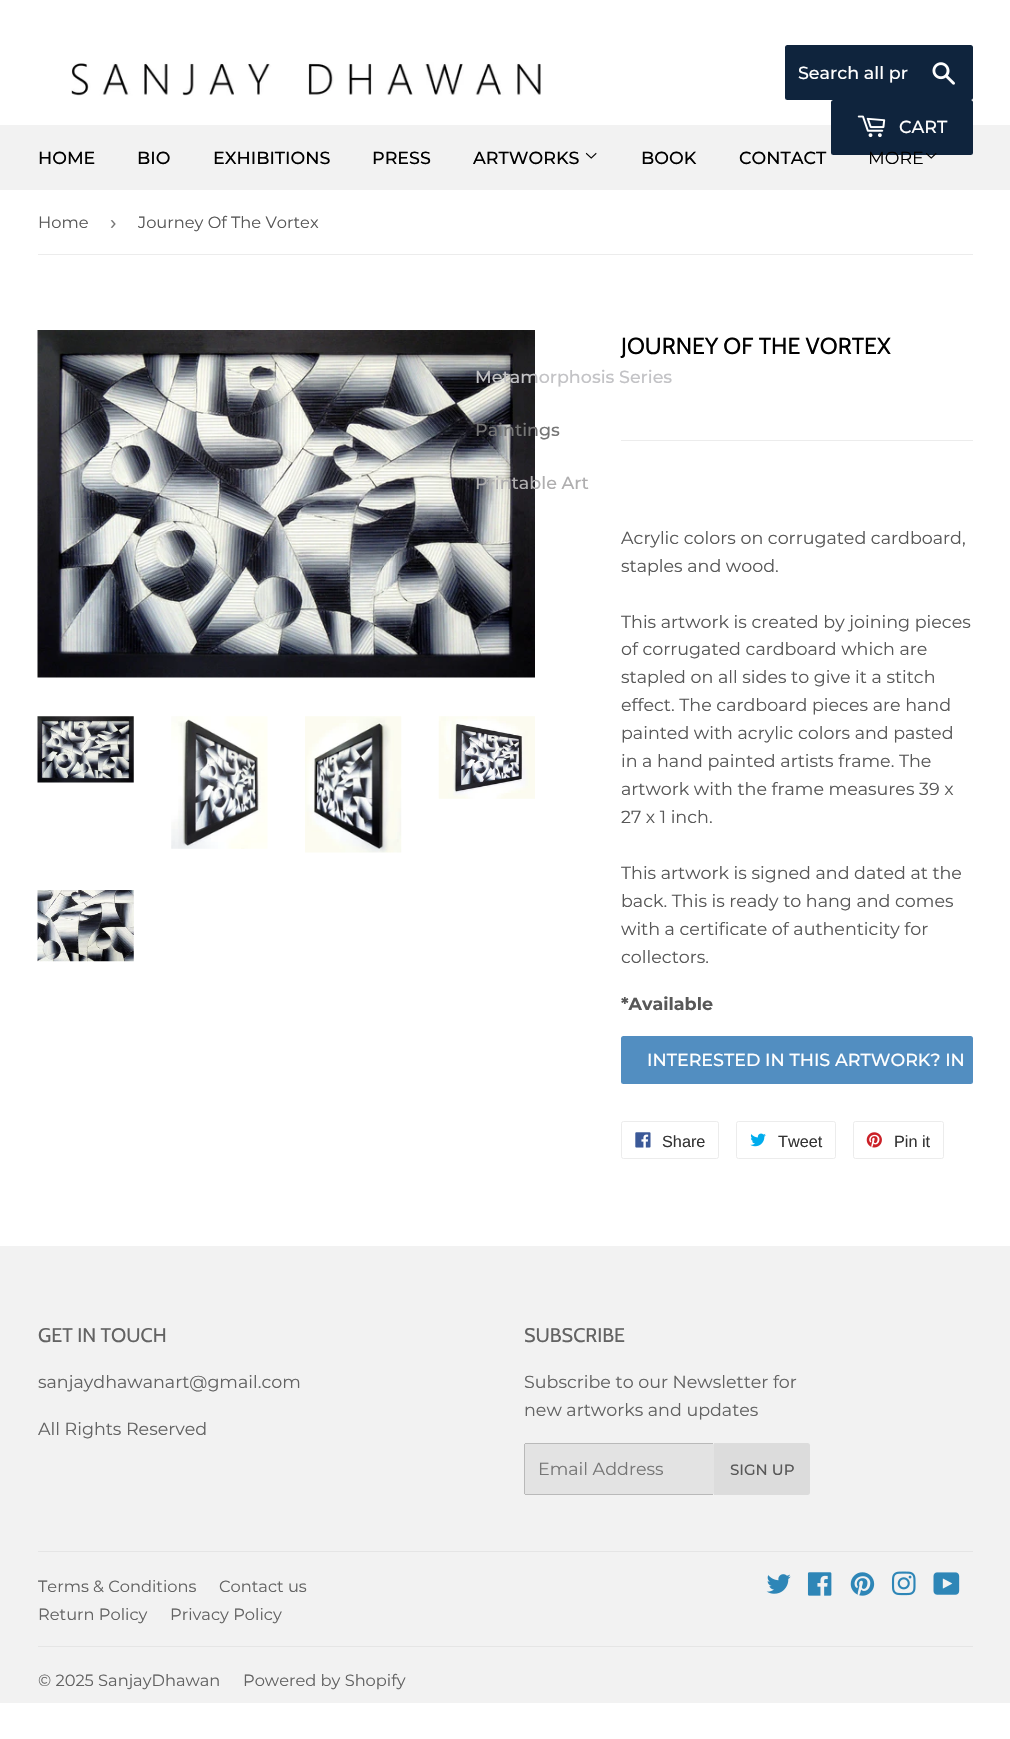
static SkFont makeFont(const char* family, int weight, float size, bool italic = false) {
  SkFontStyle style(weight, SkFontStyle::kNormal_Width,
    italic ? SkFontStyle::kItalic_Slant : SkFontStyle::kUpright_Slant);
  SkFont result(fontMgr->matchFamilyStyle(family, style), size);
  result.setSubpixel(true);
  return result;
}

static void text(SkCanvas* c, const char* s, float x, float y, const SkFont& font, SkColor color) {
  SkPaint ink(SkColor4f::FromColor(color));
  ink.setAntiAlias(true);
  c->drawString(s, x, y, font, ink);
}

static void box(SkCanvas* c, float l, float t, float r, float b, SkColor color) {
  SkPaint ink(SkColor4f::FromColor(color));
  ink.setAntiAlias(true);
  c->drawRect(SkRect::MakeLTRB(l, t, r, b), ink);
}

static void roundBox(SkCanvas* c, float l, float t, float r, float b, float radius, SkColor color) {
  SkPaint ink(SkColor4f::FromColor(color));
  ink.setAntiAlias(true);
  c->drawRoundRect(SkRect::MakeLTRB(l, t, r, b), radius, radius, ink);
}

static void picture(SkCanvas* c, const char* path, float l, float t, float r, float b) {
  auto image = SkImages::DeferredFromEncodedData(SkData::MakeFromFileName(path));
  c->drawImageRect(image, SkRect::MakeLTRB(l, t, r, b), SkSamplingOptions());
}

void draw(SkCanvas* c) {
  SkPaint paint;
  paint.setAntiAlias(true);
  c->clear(0xffffffff);
  picture(c, "img_01.png", 71, 62, 541, 96);
  roundBox(c, 785, 45, 973, 100, 2.5f, 0xff0f243d);
  SkFont face1 = makeFont("Montserrat", 500, 17.5f);
  text(c, "Search all pr", 798, 79, face1, 0xffffffff);
  picture(c, "img_02.png", 932, 62, 955, 85);
  box(c, 0, 125, 1010, 190, 0xfff2f2f2);
  roundBox(c, 831, 100, 973, 155, 2.5f, 0xff0f243d);
  picture(c, "img_03.png", 857, 115, 886, 138);
  text(c, "CART", 899, 133, face1, 0xffffffff);
  text(c, "HOME", 38, 164, face1, 0xff000000);
  text(c, "BIO", 137, 164, face1, 0xff000000);
  text(c, "EXHIBITIONS", 213, 164, face1, 0xff000000);
  text(c, "PRESS", 372, 164, face1, 0xff000000);
  text(c, "ARTWORKS", 473, 164, face1, 0xff000000);
  picture(c, "img_04.png", 585, 152, 597, 159);
  picture(c, "img_06.png", 37, 330, 535, 678);
  text(c, "Metamorphosis Series", 475, 383, face1, 0xffc3c3c6);
  text(c, "Paintings", 475, 436, face1, 0xff767676);
  text(c, "Printable Art", 475, 489, face1, 0xffafaeaf);
  text(c, "BOOK", 641, 164, face1, 0xff000000);
  text(c, "CONTACT", 739, 164, face1, 0xff000000);
  SkFont face2 = makeFont("Montserrat", 400, 17.5f);
  text(c, "MORE", 868, 164, face2, 0xff000000);
  picture(c, "img_05.png", 926, 153, 937, 159);
  box(c, 38, 254, 973, 255, 0xffececec);
  SkFont face3 = makeFont("Montserrat", 400, 16.25f);
  text(c, "Home", 38, 228, face3, 0xff585858);
  SkFont face4 = makeFont("Liberation Sans", 400, 19);
  text(c, "›", 110, 229, face4, 0xff767676);
  text(c, "Journey Of The Vortex", 138, 228, face3, 0xff585858);
  picture(c, "img_07.png", 37, 716, 134, 783);
  picture(c, "img_08.png", 171, 716, 268, 849);
  picture(c, "img_09.png", 305, 716, 402, 853);
  picture(c, "img_10.png", 438, 716, 535, 799);
  picture(c, "img_11.png", 37, 890, 134, 962);
  SkFont face5 = makeFont("Cabin", 400, 23.25f);
  text(c, "JOURNEY OF THE VORTEX", 621, 354, face5, 0xff000000);
  box(c, 621, 440, 973, 441, 0xffececec);
  text(c, "Acrylic colors on corrugated cardboard,", 621, 544, face2, 0xff585858);
  text(c, "staples and wood.", 621, 572, face2, 0xff585858);
  text(c, "This artwork is created by joining pieces", 621, 628, face2, 0xff585858);
  text(c, "of corrugated cardboard which are", 621, 655, face2, 0xff585858);
  text(c, "stapled on all sides to give it a stitch", 621, 683, face2, 0xff585858);
  text(c, "effect. The cardboard pieces are hand", 621, 711, face2, 0xff585858);
  text(c, "painted with acrylic colors and pasted", 621, 739, face2, 0xff585858);
  text(c, "in a hand painted artists frame. The", 621, 767, face2, 0xff585858);
  text(c, "artwork with the frame measures 39 x", 621, 795, face2, 0xff585858);
  text(c, "27 x 1 inch.", 621, 823, face2, 0xff585858);
  text(c, "This artwork is signed and dated at the", 621, 879, face2, 0xff585858);
  text(c, "back. This is ready to hang and comes", 621, 907, face2, 0xff585858);
  text(c, "with a certificate of authenticity for", 621, 935, face2, 0xff585858);
  text(c, "collectors.", 621, 963, face2, 0xff585858);
  SkFont face6 = makeFont("Montserrat", 700, 17.5f);
  text(c, "*Available", 621, 1010, face6, 0xff585858);
  roundBox(c, 621, 1036, 973, 1084, 2.5f, 0xff528ec1);
  text(c, "INTERESTED IN THIS ARTWORK? IN", 647, 1066, face1, 0xffffffff);
  paint.setStyle(SkPaint::kStroke_Style);
  paint.setStrokeWidth(1);
  paint.setColor(0xffececec);
  c->drawRoundRect(SkRect::MakeLTRB(621.5f, 1121.5f, 718.5f, 1158.5f), 2, 2, paint);
  picture(c, "img_12.png", 635, 1132, 651, 1148);
  SkFont face7 = makeFont("Liberation Sans", 400, 16.25f);
  text(c, "Share", 662, 1147, face7, 0xff333333);
  c->drawRoundRect(SkRect::MakeLTRB(736.5f, 1121.5f, 835.5f, 1158.5f), 2, 2, paint);
  picture(c, "img_13.png", 750, 1133, 766, 1147);
  text(c, "Tweet", 778, 1147, face7, 0xff333333);
  c->drawRoundRect(SkRect::MakeLTRB(853.5f, 1121.5f, 943.5f, 1158.5f), 2, 2, paint);
  picture(c, "img_14.png", 866, 1132, 882, 1148);
  text(c, "Pin it", 894, 1147, face7, 0xff333333);
  box(c, 0, 1246, 1010, 1703, 0xfff2f2f2);
  SkFont face8 = makeFont("Cabin", 400, 19.75f);
  text(c, "GET IN TOUCH", 38, 1342, face8, 0xff636363);
  text(c, "sanjaydhawanart@gmail.com", 38, 1388, face2, 0xff636363);
  text(c, "All Rights Reserved", 38, 1435, face2, 0xff636363);
  text(c, "SUBSCRIBE", 524, 1342, face8, 0xff636363);
  text(c, "Subscribe to our Newsletter for", 524, 1388, face2, 0xff636363);
  text(c, "new artworks and updates", 524, 1416, face2, 0xff636363);
  roundBox(c, 524, 1443, 714, 1495, 2.5f, 0xffe3e3e3);
  box(c, 525, 1443, 713, 1444, 0xffb9b9b9);
  box(c, 525, 1494, 713, 1495, 0xffb9b9b9);
  box(c, 524, 1444, 525, 1494, 0xffb9b9b9);
  text(c, "Email Address", 538, 1475, face2, 0xff767676);
  paint.setStyle(SkPaint::kFill_Style);
  paint.setColor(0xffdcdcdc);
  c->drawPath(SkPathBuilder().moveTo(714, 1443).lineTo(807.5f, 1443).cubicTo(809, 1443, 810, 1444, 810, 1445.5f).lineTo(810, 1492.5f).cubicTo(810, 1494, 809, 1495, 807.5f, 1495).lineTo(714, 1495).close().detach(), paint);
  SkFont face9 = makeFont("Montserrat", 500, 15);
  text(c, "SIGN UP", 730, 1475, face9, 0xff585858);
  box(c, 38, 1551, 973, 1552, 0xffe5e5e5);
  text(c, "Terms & Conditions", 38, 1592, face3, 0xff636363);
  text(c, "Contact us", 219, 1592, face3, 0xff636363);
  text(c, "Return Policy", 38, 1620, face3, 0xff636363);
  text(c, "Privacy Policy", 170, 1620, face3, 0xff636363);
  picture(c, "img_15.png", 766, 1574, 791, 1594);
  picture(c, "img_16.png", 807, 1572, 832, 1596);
  picture(c, "img_17.png", 850, 1572, 875, 1596);
  picture(c, "img_18.png", 891, 1571, 916, 1596);
  picture(c, "img_19.png", 933, 1572, 960, 1595);
  box(c, 38, 1646, 973, 1647, 0xffe5e5e5);
  text(c, "© 2025 SanjayDhawan", 38, 1686, face3, 0xff636363);
  text(c, "Powered by Shopify", 243, 1686, face3, 0xff636363);
}
